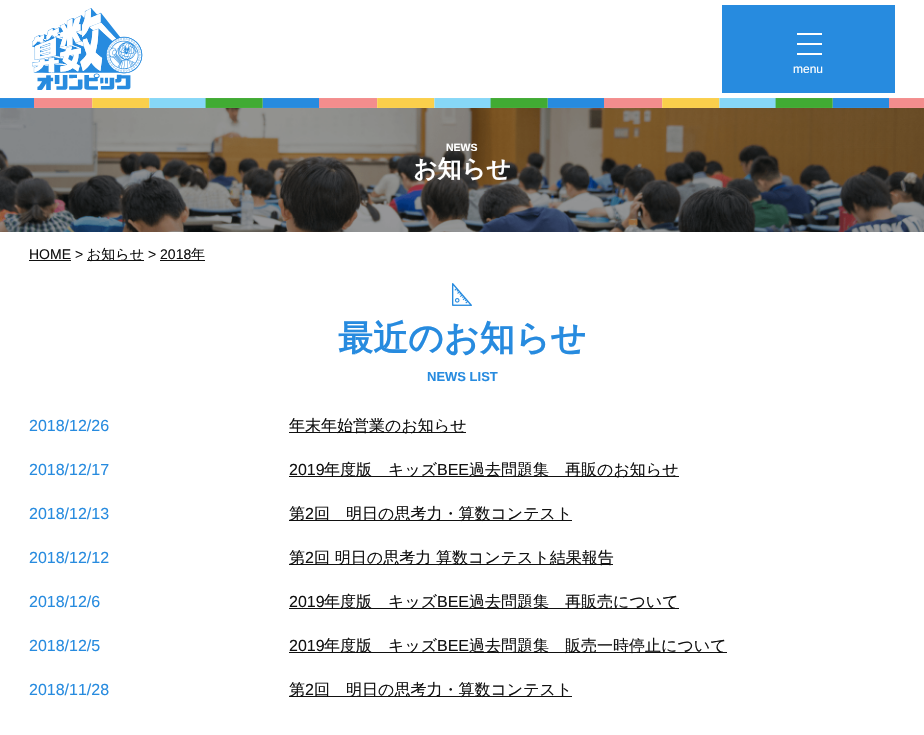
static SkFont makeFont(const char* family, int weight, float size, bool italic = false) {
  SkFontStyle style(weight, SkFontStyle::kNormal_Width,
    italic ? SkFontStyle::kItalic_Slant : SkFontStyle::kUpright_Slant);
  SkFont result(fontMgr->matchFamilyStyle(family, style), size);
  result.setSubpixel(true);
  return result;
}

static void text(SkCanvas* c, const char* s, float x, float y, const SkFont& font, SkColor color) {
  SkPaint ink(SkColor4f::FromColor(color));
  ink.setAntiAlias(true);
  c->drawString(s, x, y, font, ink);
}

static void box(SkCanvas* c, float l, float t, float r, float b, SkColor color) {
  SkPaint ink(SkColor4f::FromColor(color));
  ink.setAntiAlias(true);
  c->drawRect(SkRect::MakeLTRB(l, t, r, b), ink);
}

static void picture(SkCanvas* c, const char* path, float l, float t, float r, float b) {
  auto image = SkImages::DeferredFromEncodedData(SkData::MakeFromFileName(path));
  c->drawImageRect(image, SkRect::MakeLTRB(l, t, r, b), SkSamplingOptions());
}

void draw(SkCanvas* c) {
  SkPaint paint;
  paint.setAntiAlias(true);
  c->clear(0xffffffff);
  picture(c, "img_01.png", 0, 98, 924, 108);
  picture(c, "img_02.png", 32, 8, 143, 90);
  box(c, 722, 5, 895, 93, 0xff278bdf);
  box(c, 797, 33, 822, 35, 0xffffffff);
  box(c, 797, 43, 822, 45, 0xffffffff);
  box(c, 797, 53, 822, 55, 0xffffffff);
  SkFont face1 = makeFont("Liberation Sans", 400, 12);
  text(c, "menu", 793, 73, face1, 0xffffffff);
  picture(c, "img_03.png", 0, 108, 924, 232);
  SkFont face2 = makeFont("Liberation Sans", 700, 10.5f);
  text(c, "NEWS", 446, 151, face2, 0xffffffff);
  SkFont face3 = makeFont("WenQuanYi Zen Hei", 700, 24);
  text(c, "お知らせ", 413, 177, face3, 0xffffffff);
  SkFont face4 = makeFont("Liberation Sans", 400, 14);
  text(c, "HOME >", 29, 259, face4, 0xff111111);
  box(c, 29, 260, 71, 261, 0xff111111);
  box(c, 87, 260, 144, 261, 0xff111111);
  SkFont face5 = makeFont("WenQuanYi Zen Hei", 500, 14);
  text(c, "お知らせ", 87, 259, face5, 0xff111111);
  text(c, "> 2018", 148, 259, face4, 0xff111111);
  box(c, 160, 260, 205, 261, 0xff111111);
  text(c, "年", 191, 259, face5, 0xff111111);
  picture(c, "img_04.png", 452, 283, 472, 306);
  SkFont face6 = makeFont("WenQuanYi Zen Hei", 700, 35);
  text(c, "最近のお知らせ", 338, 350, face6, 0xff278bdf);
  SkFont face7 = makeFont("Liberation Sans", 700, 13);
  text(c, "NEWS LIST", 427, 381, face7, 0xff278bdf);
  SkFont face8 = makeFont("Liberation Sans", 400, 16);
  text(c, "2018/12/26", 29, 431, face8, 0xff278bdf);
  box(c, 289, 432, 466, 433, 0xff111111);
  SkFont face9 = makeFont("WenQuanYi Zen Hei", 500, 16);
  text(c, "年末年始営業のお知らせ", 289, 431, face9, 0xff111111);
  text(c, "2018/12/17", 29, 475, face8, 0xff278bdf);
  text(c, "2019", 289, 475, face8, 0xff111111);
  box(c, 289, 476, 679, 477, 0xff111111);
  text(c, "年度版　キッズ", 324, 475, face9, 0xff111111);
  text(c, "BEE", 437, 475, face8, 0xff111111);
  text(c, "過去問題集　再販のお知らせ", 469, 475, face9, 0xff111111);
  text(c, "2018/12/13", 29, 519, face8, 0xff278bdf);
  box(c, 289, 520, 572, 521, 0xff111111);
  text(c, "第", 289, 519, face9, 0xff111111);
  text(c, "2", 305, 519, face8, 0xff111111);
  text(c, "回　明日の思考力・算数コンテスト", 314, 519, face9, 0xff111111);
  text(c, "2018/12/12", 29, 563, face8, 0xff278bdf);
  box(c, 289, 564, 613, 565, 0xff111111);
  text(c, "第", 289, 563, face9, 0xff111111);
  text(c, "2", 305, 563, face8, 0xff111111);
  text(c, "回 明日の思考力 算数コンテスト結果報告", 314, 563, face9, 0xff111111);
  text(c, "2018/12/6", 29, 607, face8, 0xff278bdf);
  text(c, "2019", 289, 607, face8, 0xff111111);
  box(c, 289, 608, 679, 609, 0xff111111);
  text(c, "年度版　キッズ", 324, 607, face9, 0xff111111);
  text(c, "BEE", 437, 607, face8, 0xff111111);
  text(c, "過去問題集　再販売について", 469, 607, face9, 0xff111111);
  text(c, "2018/12/5", 29, 651, face8, 0xff278bdf);
  text(c, "2019", 289, 651, face8, 0xff111111);
  box(c, 289, 652, 727, 653, 0xff111111);
  text(c, "年度版　キッズ", 324, 651, face9, 0xff111111);
  text(c, "BEE", 437, 651, face8, 0xff111111);
  text(c, "過去問題集　販売一時停止について", 469, 651, face9, 0xff111111);
  text(c, "2018/11/28", 29, 695, face8, 0xff278bdf);
  box(c, 289, 696, 572, 697, 0xff111111);
  text(c, "第", 289, 695, face9, 0xff111111);
  text(c, "2", 305, 695, face8, 0xff111111);
  text(c, "回　明日の思考力・算数コンテスト", 314, 695, face9, 0xff111111);
}
